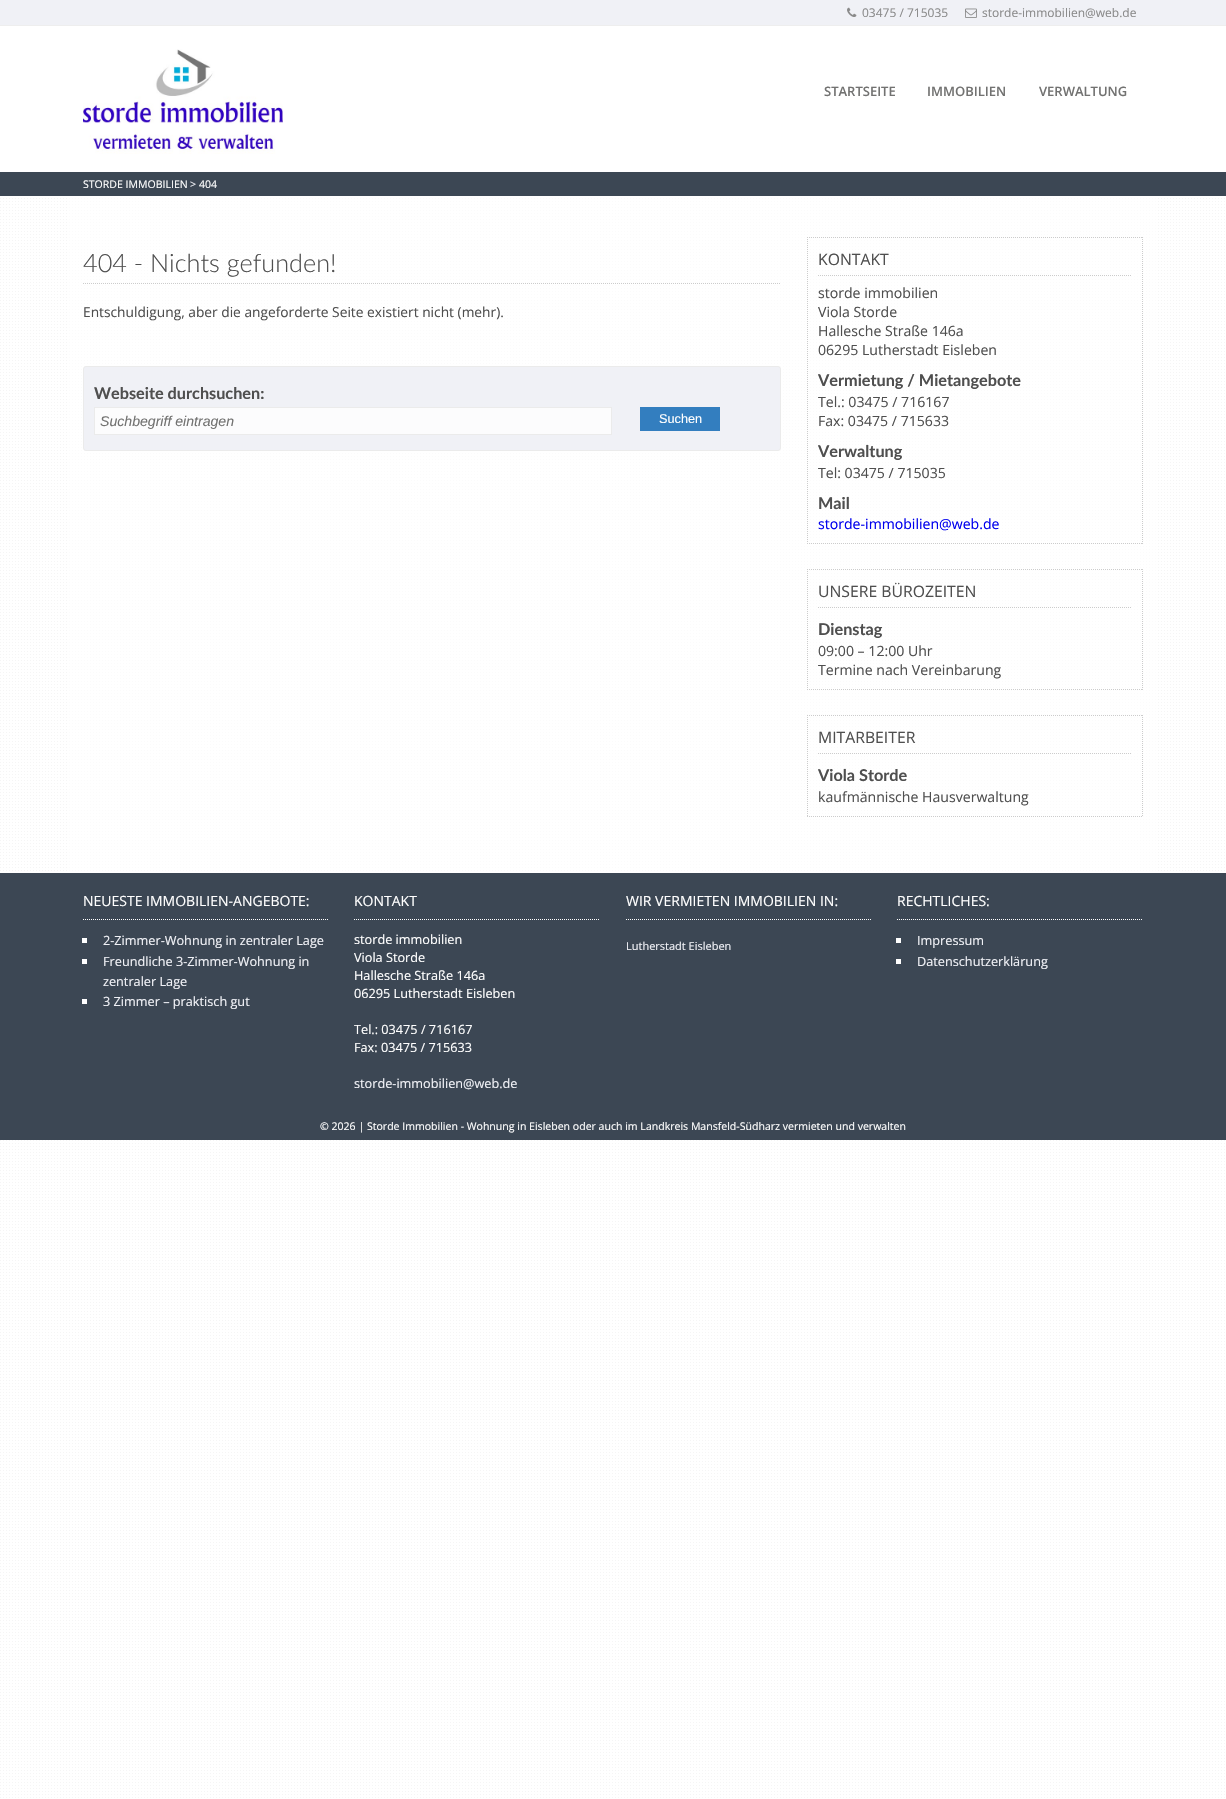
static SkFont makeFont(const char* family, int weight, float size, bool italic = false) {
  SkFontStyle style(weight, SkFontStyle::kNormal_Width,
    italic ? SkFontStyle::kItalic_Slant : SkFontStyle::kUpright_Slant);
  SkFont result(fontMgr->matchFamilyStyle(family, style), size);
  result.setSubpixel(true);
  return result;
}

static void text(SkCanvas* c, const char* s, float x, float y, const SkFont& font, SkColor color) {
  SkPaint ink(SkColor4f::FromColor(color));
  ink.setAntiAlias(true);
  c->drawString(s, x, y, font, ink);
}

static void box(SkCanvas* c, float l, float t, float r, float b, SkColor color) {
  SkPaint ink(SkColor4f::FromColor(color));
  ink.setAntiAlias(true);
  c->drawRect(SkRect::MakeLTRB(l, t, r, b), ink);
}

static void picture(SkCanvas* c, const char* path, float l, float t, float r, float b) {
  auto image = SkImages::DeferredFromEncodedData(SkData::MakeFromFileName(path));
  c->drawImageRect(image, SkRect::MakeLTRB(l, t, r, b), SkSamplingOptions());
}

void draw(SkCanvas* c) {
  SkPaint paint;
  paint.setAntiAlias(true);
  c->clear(0xffffffff);
  picture(c, "img_01.png", 0, 26, 1225, 1798);
  box(c, 0, 0, 1226, 25, 0xfff0f1f6);
  box(c, 0, 25, 1226, 26, 0xffeeeeee);
  picture(c, "img_02.png", 847, 7, 857, 17);
  SkFont face1 = makeFont("Open Sans", 400, 12);
  text(c, "03475 / 715035", 862, 17, face1, 0xff8a8a8a);
  picture(c, "img_03.png", 965, 8, 977, 18);
  text(c, "storde-immobilien@web.de", 982, 17, face1, 0xff8a8a8a);
  box(c, 0, 27, 1225, 172, 0xffffffff);
  picture(c, "img_04.png", 83, 49, 283, 154);
  SkFont face2 = makeFont("Open Sans", 600, 13);
  text(c, "STARTSEITE", 824, 96, face2, 0xff727271);
  text(c, "IMMOBILIEN", 927, 96, face2, 0xff727271);
  text(c, "VERWALTUNG", 1039, 96, face2, 0xff727271);
  box(c, 0, 172, 1226, 196, 0xff3c4754);
  SkFont face3 = makeFont("Open Sans", 400, 10.55f);
  text(c, "STORDE IMMOBILIEN", 83, 188, face3, 0xffffffff);
  text(c, ">", 190, 188, face3, 0xfff0f1f6);
  text(c, "404", 199, 188, face3, 0xffffffff);
  box(c, 69, 198, 1156, 871, 0x99ffffff);
  paint.setStyle(SkPaint::kStroke_Style);
  paint.setStrokeWidth(1);
  paint.setColor(0xffcccccc);
  paint.setPathEffect(SkDashPathEffect::Make({{1, 1}}, 0));
  c->drawPath(SkPathBuilder().moveTo(83, 283.5f).lineTo(781, 283.5f).detach(), paint);
  paint.setPathEffect(nullptr);
  SkFont face4 = makeFont("Lato", 300, 25.25f);
  text(c, "404 - Nichts gefunden!", 83, 272, face4, 0xff4f4f4f);
  SkFont face5 = makeFont("Open Sans", 400, 13.75f);
  text(c, "Entschuldigung, aber die angeforderte Seite existiert nicht (mehr).", 83, 317, face5, 0xff4f4f4f);
  paint.setStyle(SkPaint::kFill_Style);
  paint.setColor(0xfff0f1f6);
  c->drawRoundRect(SkRect::MakeLTRB(83.5f, 366.5f, 780.5f, 450.5f), 2.5f, 2.5f, paint);
  paint.setStyle(SkPaint::kStroke_Style);
  paint.setColor(0xffebebeb);
  c->drawRoundRect(SkRect::MakeLTRB(83.5f, 366.5f, 780.5f, 450.5f), 2.5f, 2.5f, paint);
  SkFont face6 = makeFont("Lato", 700, 16.25f);
  text(c, "Webseite durchsuchen:", 94, 399, face6, 0xff4f4f4f);
  paint.setStyle(SkPaint::kFill_Style);
  paint.setColor(0xfffcfcfd);
  c->drawRect(SkRect::MakeLTRB(94.5f, 407.5f, 611.5f, 434.5f), paint);
  paint.setStyle(SkPaint::kStroke_Style);
  paint.setColor(0xffebebeb);
  c->drawRect(SkRect::MakeLTRB(94.5f, 407.5f, 611.5f, 434.5f), paint);
  SkFont face7 = makeFont("Liberation Sans", 400, 14.1f, true);
  text(c, "Suchbegriff eintragen", 100, 426, face7, 0xff727271);
  box(c, 640, 407, 720, 431, 0xff337ebf);
  SkFont face8 = makeFont("Liberation Sans", 400, 12.7f);
  text(c, "Suchen", 659, 423, face8, 0xffffffff);
  paint.setColor(0xffcccccc);
  paint.setPathEffect(SkDashPathEffect::Make({{1, 1}}, 0));
  c->drawPath(SkPathBuilder().moveTo(807, 237.5f).lineTo(1143, 237.5f).detach(), paint);
  paint.setPathEffect(nullptr);
  paint.setPathEffect(SkDashPathEffect::Make({{1, 1}}, 0));
  c->drawPath(SkPathBuilder().moveTo(1142.5f, 237).lineTo(1142.5f, 544).detach(), paint);
  paint.setPathEffect(nullptr);
  paint.setPathEffect(SkDashPathEffect::Make({{1, 1}}, 0));
  c->drawPath(SkPathBuilder().moveTo(807, 543.5f).lineTo(1143, 543.5f).detach(), paint);
  paint.setPathEffect(nullptr);
  paint.setPathEffect(SkDashPathEffect::Make({{1, 1}}, 0));
  c->drawPath(SkPathBuilder().moveTo(807.5f, 237).lineTo(807.5f, 544).detach(), paint);
  paint.setPathEffect(nullptr);
  paint.setPathEffect(SkDashPathEffect::Make({{1, 1}}, 0));
  c->drawPath(SkPathBuilder().moveTo(818, 275.5f).lineTo(1132, 275.5f).detach(), paint);
  paint.setPathEffect(nullptr);
  SkFont face9 = makeFont("Open Sans", 400, 15.75f);
  text(c, "KONTAKT", 818, 265, face9, 0xff4f4f4f);
  SkFont face10 = makeFont("Open Sans", 400, 14.1f);
  text(c, "storde immobilien", 818, 298, face10, 0xff4f4f4f);
  text(c, "Viola Storde", 818, 317, face10, 0xff4f4f4f);
  text(c, "Hallesche Straße 146a", 818, 336, face10, 0xff4f4f4f);
  text(c, "06295 Lutherstadt Eisleben", 818, 355, face10, 0xff4f4f4f);
  text(c, "Vermietung / Mietangebote", 818, 386, face6, 0xff4f4f4f);
  text(c, "Tel.: 03475 / 716167", 818, 407, face10, 0xff4f4f4f);
  text(c, "Fax: 03475 / 715633", 818, 426, face10, 0xff4f4f4f);
  text(c, "Verwaltung", 818, 457, face6, 0xff4f4f4f);
  text(c, "Tel: 03475 / 715035", 818, 478, face10, 0xff4f4f4f);
  text(c, "Mail", 818, 509, face6, 0xff4f4f4f);
  text(c, "storde-immobilien@web.de", 818, 529, face10, 0xff0000ee);
  paint.setPathEffect(SkDashPathEffect::Make({{1, 1}}, 0));
  c->drawPath(SkPathBuilder().moveTo(807, 569.5f).lineTo(1143, 569.5f).detach(), paint);
  paint.setPathEffect(nullptr);
  paint.setPathEffect(SkDashPathEffect::Make({{1, 1}}, 0));
  c->drawPath(SkPathBuilder().moveTo(1142.5f, 569).lineTo(1142.5f, 690).detach(), paint);
  paint.setPathEffect(nullptr);
  paint.setPathEffect(SkDashPathEffect::Make({{1, 1}}, 0));
  c->drawPath(SkPathBuilder().moveTo(807, 689.5f).lineTo(1143, 689.5f).detach(), paint);
  paint.setPathEffect(nullptr);
  paint.setPathEffect(SkDashPathEffect::Make({{1, 1}}, 0));
  c->drawPath(SkPathBuilder().moveTo(807.5f, 569).lineTo(807.5f, 690).detach(), paint);
  paint.setPathEffect(nullptr);
  paint.setPathEffect(SkDashPathEffect::Make({{1, 1}}, 0));
  c->drawPath(SkPathBuilder().moveTo(818, 607.5f).lineTo(1132, 607.5f).detach(), paint);
  paint.setPathEffect(nullptr);
  text(c, "UNSERE BÜROZEITEN", 818, 597, face9, 0xff4f4f4f);
  text(c, "Dienstag", 818, 635, face6, 0xff4f4f4f);
  text(c, "09:00 – 12:00 Uhr", 818, 656, face10, 0xff4f4f4f);
  text(c, "Termine nach Vereinbarung", 818, 675, face10, 0xff4f4f4f);
  paint.setPathEffect(SkDashPathEffect::Make({{1, 1}}, 0));
  c->drawPath(SkPathBuilder().moveTo(807, 715.5f).lineTo(1143, 715.5f).detach(), paint);
  paint.setPathEffect(nullptr);
  paint.setPathEffect(SkDashPathEffect::Make({{1, 1}}, 0));
  c->drawPath(SkPathBuilder().moveTo(1142.5f, 715).lineTo(1142.5f, 817).detach(), paint);
  paint.setPathEffect(nullptr);
  paint.setPathEffect(SkDashPathEffect::Make({{1, 1}}, 0));
  c->drawPath(SkPathBuilder().moveTo(807, 816.5f).lineTo(1143, 816.5f).detach(), paint);
  paint.setPathEffect(nullptr);
  paint.setPathEffect(SkDashPathEffect::Make({{1, 1}}, 0));
  c->drawPath(SkPathBuilder().moveTo(807.5f, 715).lineTo(807.5f, 817).detach(), paint);
  paint.setPathEffect(nullptr);
  paint.setPathEffect(SkDashPathEffect::Make({{1, 1}}, 0));
  c->drawPath(SkPathBuilder().moveTo(818, 753.5f).lineTo(1132, 753.5f).detach(), paint);
  paint.setPathEffect(nullptr);
  text(c, "MITARBEITER", 818, 743, face9, 0xff4f4f4f);
  text(c, "Viola Storde", 818, 781, face6, 0xff4f4f4f);
  text(c, "kaufmännische Hausverwaltung", 818, 802, face10, 0xff4f4f4f);
  box(c, 0, 873, 1226, 1140, 0xff3c4754);
  paint.setColor(0xffffffff);
  paint.setPathEffect(SkDashPathEffect::Make({{1, 1}}, 0));
  c->drawPath(SkPathBuilder().moveTo(83, 919.5f).lineTo(329, 919.5f).detach(), paint);
  paint.setPathEffect(nullptr);
  SkFont face11 = makeFont("Open Sans", 400, 14);
  text(c, "NEUESTE IMMOBILIEN-ANGEBOTE:", 83, 906, face11, 0xffffffff);
  box(c, 82, 938, 87, 943, 0xffffffff);
  SkFont face12 = makeFont("Open Sans", 400, 12.7f);
  text(c, "2-Zimmer-Wohnung in zentraler Lage", 103, 945, face12, 0xfff0f1f6);
  box(c, 82, 959, 87, 964, 0xffffffff);
  text(c, "Freundliche 3-Zimmer-Wohnung in", 103, 966, face12, 0xfff0f1f6);
  text(c, "zentraler Lage", 103, 986, face12, 0xfff0f1f6);
  box(c, 82, 999, 87, 1004, 0xffffffff);
  text(c, "3 Zimmer – praktisch gut", 103, 1006, face12, 0xfff0f1f6);
  paint.setPathEffect(SkDashPathEffect::Make({{1, 1}}, 0));
  c->drawPath(SkPathBuilder().moveTo(354, 919.5f).lineTo(600, 919.5f).detach(), paint);
  paint.setPathEffect(nullptr);
  text(c, "KONTAKT", 354, 906, face11, 0xffffffff);
  text(c, "storde immobilien", 354, 944, face12, 0xffffffff);
  text(c, "Viola Storde", 354, 962, face12, 0xffffffff);
  text(c, "Hallesche Straße 146a", 354, 980, face12, 0xffffffff);
  text(c, "06295 Lutherstadt Eisleben", 354, 998, face12, 0xffffffff);
  text(c, "Tel.: 03475 / 716167", 354, 1034, face12, 0xffffffff);
  text(c, "Fax: 03475 / 715633", 354, 1052, face12, 0xffffffff);
  text(c, "storde-immobilien@web.de", 354, 1088, face12, 0xfff0f1f6);
  paint.setPathEffect(SkDashPathEffect::Make({{1, 1}}, 0));
  c->drawPath(SkPathBuilder().moveTo(626, 919.5f).lineTo(872, 919.5f).detach(), paint);
  paint.setPathEffect(nullptr);
  text(c, "WIR VERMIETEN IMMOBILIEN IN:", 626, 906, face11, 0xffffffff);
  SkFont face13 = makeFont("Open Sans", 400, 11);
  text(c, "Lutherstadt Eisleben", 626, 950, face13, 0xfff0f1f6);
  paint.setPathEffect(SkDashPathEffect::Make({{1, 1}}, 0));
  c->drawPath(SkPathBuilder().moveTo(897, 919.5f).lineTo(1143, 919.5f).detach(), paint);
  paint.setPathEffect(nullptr);
  text(c, "RECHTLICHES:", 897, 906, face11, 0xffffffff);
  box(c, 896, 938, 901, 943, 0xffffffff);
  text(c, "Impressum", 917, 945, face12, 0xfff0f1f6);
  box(c, 896, 959, 901, 964, 0xffffffff);
  text(c, "Datenschutzerklärung", 917, 966, face12, 0xfff0f1f6);
  text(c, "© 2026 | Storde Immobilien - Wohnung in Eisleben oder auch im Landkreis Mansfeld-Südharz vermieten und verwalten", 320, 1130, face3, 0xffffffff);
}
